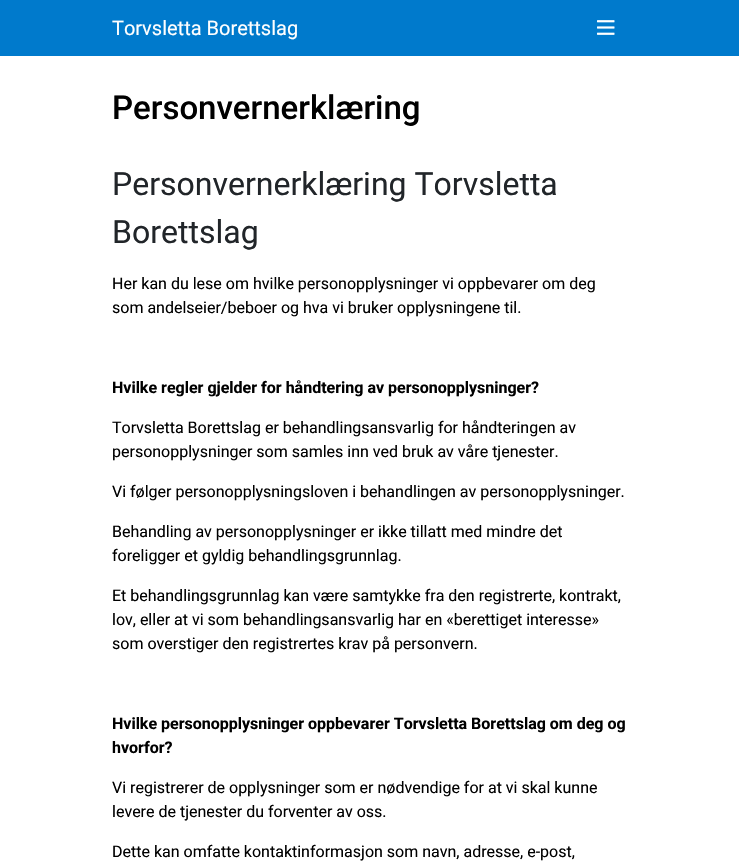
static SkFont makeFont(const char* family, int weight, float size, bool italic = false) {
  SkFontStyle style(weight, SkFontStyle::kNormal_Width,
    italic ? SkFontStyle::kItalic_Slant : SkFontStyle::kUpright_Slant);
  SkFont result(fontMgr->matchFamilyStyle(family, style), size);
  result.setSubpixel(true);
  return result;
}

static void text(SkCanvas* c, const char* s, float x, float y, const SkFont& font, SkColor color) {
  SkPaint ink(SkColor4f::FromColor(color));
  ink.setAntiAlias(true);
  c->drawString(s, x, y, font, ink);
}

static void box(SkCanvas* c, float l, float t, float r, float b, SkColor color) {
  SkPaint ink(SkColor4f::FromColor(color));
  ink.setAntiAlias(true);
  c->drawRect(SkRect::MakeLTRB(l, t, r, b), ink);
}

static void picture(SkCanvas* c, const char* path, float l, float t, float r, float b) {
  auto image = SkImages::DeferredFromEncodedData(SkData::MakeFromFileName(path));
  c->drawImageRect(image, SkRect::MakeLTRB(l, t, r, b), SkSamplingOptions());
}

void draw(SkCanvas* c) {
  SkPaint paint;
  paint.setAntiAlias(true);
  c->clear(0xffffffff);
  box(c, 0, 0, 739, 56, 0xff007acc);
  SkFont face1 = makeFont("Roboto", 400, 20);
  text(c, "Torvsletta Borettslag", 112, 35, face1, 0xffffffff);
  picture(c, "img_01.png", 597, 20, 615, 35);
  SkFont face2 = makeFont("Roboto", 500, 33);
  text(c, "Personvernerklæring", 112, 119, face2, 0xff000000);
  SkFont face3 = makeFont("Roboto", 400, 32);
  text(c, "Personvernerklæring Torvsletta", 112, 195, face3, 0xff212529);
  text(c, "Borettslag", 112, 243, face3, 0xff212529);
  SkFont face4 = makeFont("Roboto", 400, 16);
  text(c, "Her kan du lese om hvilke personopplysninger vi oppbevarer om deg", 112, 289, face4, 0xff000000);
  text(c, "som andelseier/beboer og hva vi bruker opplysningene til.", 112, 313, face4, 0xff000000);
  SkFont face5 = makeFont("Roboto", 700, 16);
  text(c, "Hvilke regler gjelder for håndtering av personopplysninger?", 112, 393, face5, 0xff000000);
  text(c, "Torvsletta Borettslag er behandlingsansvarlig for håndteringen av", 112, 433, face4, 0xff000000);
  text(c, "personopplysninger som samles inn ved bruk av våre tjenester.", 112, 457, face4, 0xff000000);
  text(c, "Vi følger personopplysningsloven i behandlingen av personopplysninger.", 112, 497, face4, 0xff000000);
  text(c, "Behandling av personopplysninger er ikke tillatt med mindre det", 112, 537, face4, 0xff000000);
  text(c, "foreligger et gyldig behandlingsgrunnlag.", 112, 561, face4, 0xff000000);
  text(c, "Et behandlingsgrunnlag kan være samtykke fra den registrerte, kontrakt,", 112, 601, face4, 0xff000000);
  text(c, "lov, eller at vi som behandlingsansvarlig har en «berettiget interesse»", 112, 625, face4, 0xff000000);
  text(c, "som overstiger den registrertes krav på personvern.", 112, 649, face4, 0xff000000);
  text(c, "Hvilke personopplysninger oppbevarer Torvsletta Borettslag om deg og", 112, 729, face5, 0xff000000);
  text(c, "hvorfor?", 112, 753, face5, 0xff000000);
  text(c, "Vi registrerer de opplysninger som er nødvendige for at vi skal kunne", 112, 793, face4, 0xff000000);
  text(c, "levere de tjenester du forventer av oss.", 112, 817, face4, 0xff000000);
  text(c, "Dette kan omfatte kontaktinformasjon som navn, adresse, e-post,", 112, 857, face4, 0xff000000);
}
